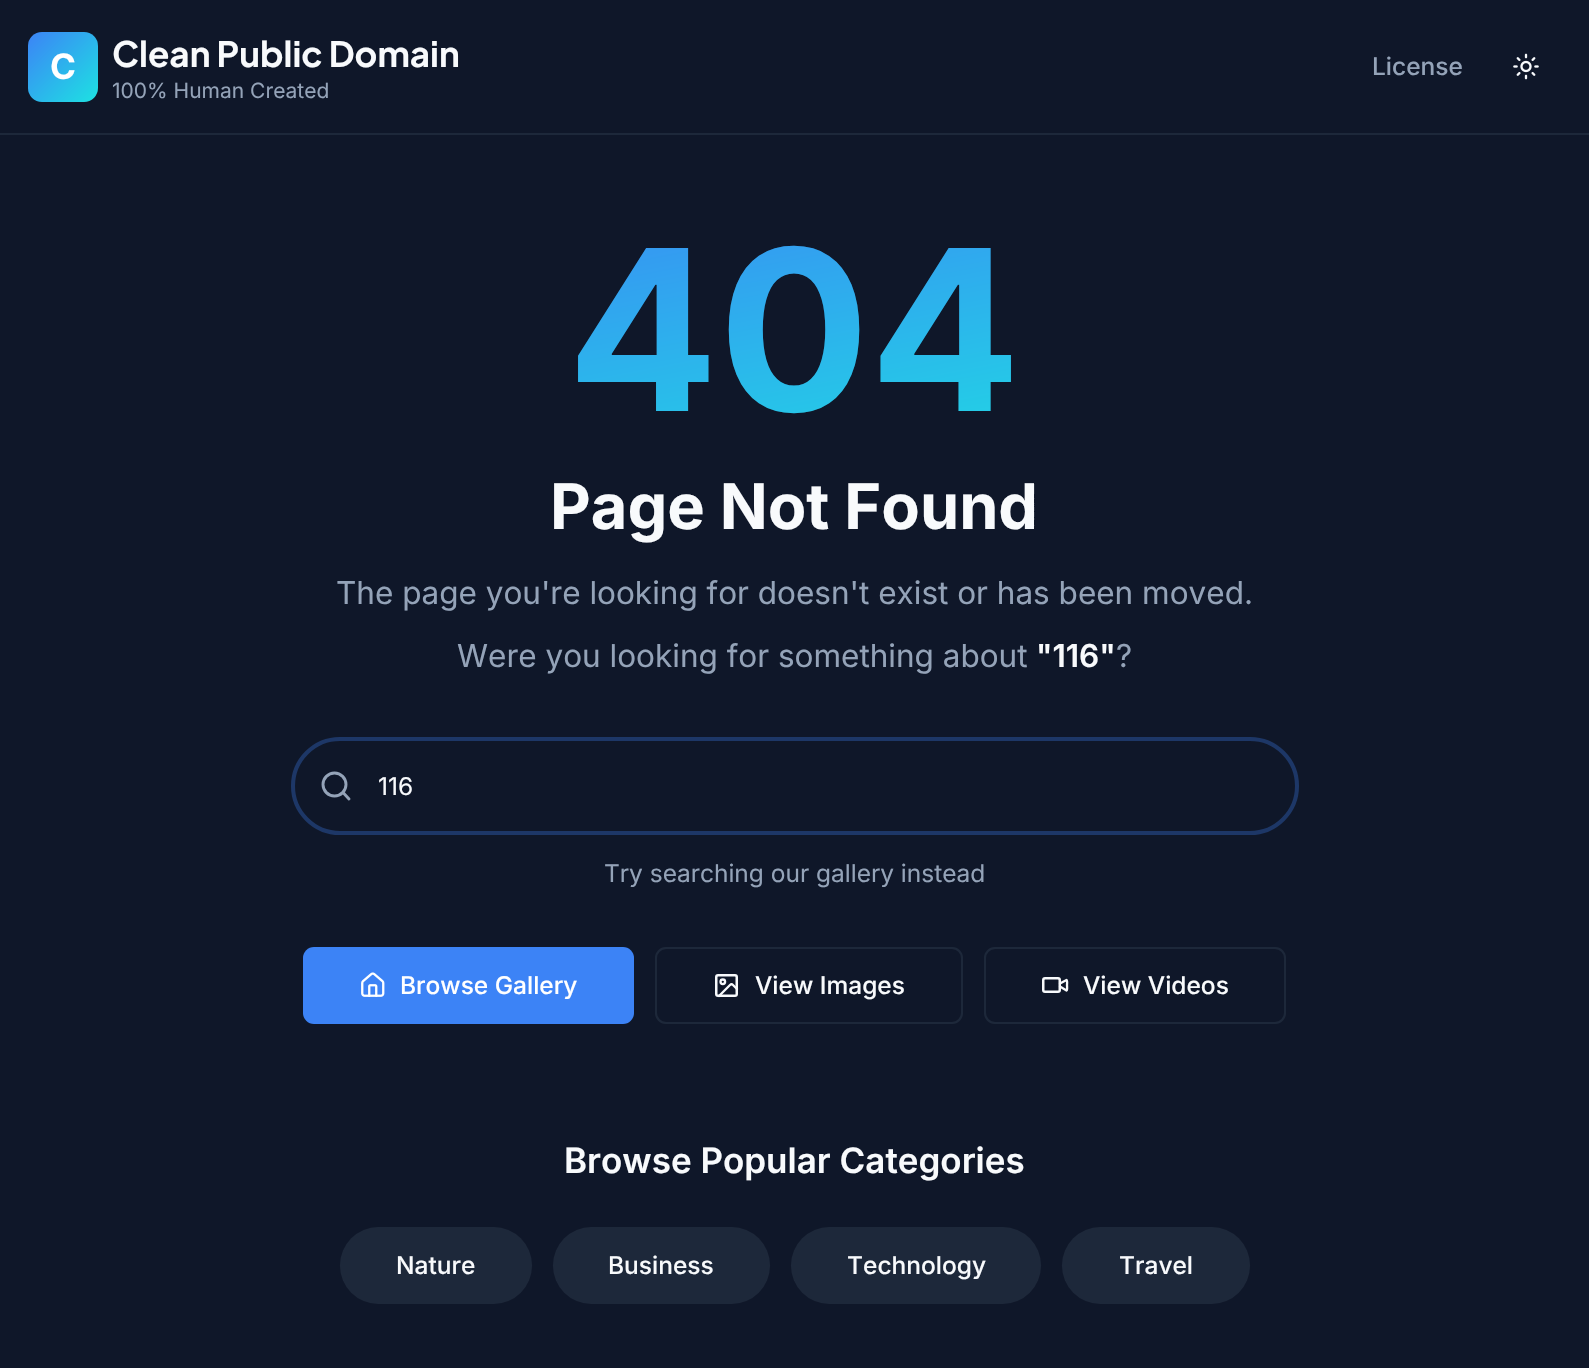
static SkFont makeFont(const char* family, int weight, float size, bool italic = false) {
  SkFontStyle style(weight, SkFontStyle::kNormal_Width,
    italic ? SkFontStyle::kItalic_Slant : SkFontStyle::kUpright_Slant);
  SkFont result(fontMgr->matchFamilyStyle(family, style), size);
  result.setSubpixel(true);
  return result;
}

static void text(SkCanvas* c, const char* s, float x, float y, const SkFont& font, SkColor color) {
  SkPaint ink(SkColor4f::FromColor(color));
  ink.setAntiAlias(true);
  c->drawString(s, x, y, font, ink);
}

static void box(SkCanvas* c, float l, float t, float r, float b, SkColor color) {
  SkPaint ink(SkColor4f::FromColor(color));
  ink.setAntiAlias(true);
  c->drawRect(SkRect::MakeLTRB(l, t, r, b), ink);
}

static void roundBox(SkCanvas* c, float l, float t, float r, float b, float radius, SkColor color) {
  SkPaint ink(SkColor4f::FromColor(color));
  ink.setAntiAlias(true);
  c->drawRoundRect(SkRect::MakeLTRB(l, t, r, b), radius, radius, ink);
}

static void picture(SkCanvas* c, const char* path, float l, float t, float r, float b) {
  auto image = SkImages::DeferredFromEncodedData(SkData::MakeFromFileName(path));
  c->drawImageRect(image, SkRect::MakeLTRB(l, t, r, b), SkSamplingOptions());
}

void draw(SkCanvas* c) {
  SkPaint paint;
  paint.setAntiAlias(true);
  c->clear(0xff0f1729);
  box(c, 0, 133, 1589, 135, 0xff1d283a);
  {
    const SkColor colors[] = {0xff3c83f6, 0xff1de2e2};
    const float stops[] = {0, 1};
    const SkPoint ends[] = {{28, 32}, {98, 102}};
    paint.setShader(SkGradientShader::MakeLinear(ends, colors, stops, 2, SkTileMode::kClamp));
    paint.setAlpha(255);
  }
  c->drawRoundRect(SkRect::MakeLTRB(28, 32, 98, 102), 14, 14, paint);
  SkFont face1 = makeFont("Inter", 700, 35);
  text(c, "C", 50, 79, face1, 0xffffffff);
  SkFont face2 = makeFont("Plus Jakarta Sans", 700, 35);
  text(c, "Clean Public Domain", 112, 67, face2, 0xfff8fafc);
  SkFont face3 = makeFont("Inter", 400, 21);
  text(c, "100% Human Created", 112, 98, face3, 0xff94a3b8);
  SkFont face4 = makeFont("Inter", 500, 24.5f);
  text(c, "License", 1372, 75, face4, 0xff94a3b8);
  picture(c, "img_01.png", 1513, 53, 1539, 80);
  SkFont face5 = makeFont("Inter", 700, 224);
  {
    const SkColor colors[] = {0xff3c83f6, 0xff1de2e2};
    const float stops[] = {0, 1};
    const SkPoint ends[] = {{753, 115}, {836, 547}};
    paint.setShader(SkGradientShader::MakeLinear(ends, colors, stops, 2, SkTileMode::kClamp));
    paint.setAlpha(255);
  }
  c->drawString("404", 567, 411, face5, paint);
  SkFont face6 = makeFont("Inter", 700, 63);
  text(c, "Page Not Found", 550, 529, face6, 0xfff8fafc);
  SkFont face7 = makeFont("Inter", 400, 31.5f);
  text(c, "The page you're looking for doesn't exist or has been moved.", 336, 604, face7, 0xff94a3b8);
  text(c, "Were you looking for something about", 457, 667, face7, 0xff94a3b8);
  SkFont face8 = makeFont("Inter", 600, 31.5f);
  text(c, "\"116\"", 1036, 667, face8, 0xfff8fafc);
  text(c, "?", 1116, 667, face7, 0xff94a3b8);
  paint.setStyle(SkPaint::kStroke_Style);
  paint.setStrokeWidth(4);
  paint.setShader(nullptr);
  paint.setColor(0xff1d3767);
  c->drawRoundRect(SkRect::MakeLTRB(293, 739, 1297, 833), 47, 47, paint);
  paint.setStrokeWidth(2.9f);
  paint.setColor(0xff94a3b8);
  c->drawCircle(334.5f, 784.5f, 11.5f, paint);
  paint.setStrokeCap(SkPaint::kRound_Cap);
  paint.setStrokeJoin(SkPaint::kRound_Join);
  c->drawPath(SkPathBuilder().moveTo(349, 799).lineTo(343, 792.5f).detach(), paint);
  SkFont face9 = makeFont("Inter", 400, 24.5f);
  text(c, "116", 378, 795, face9, 0xfff8fafc);
  text(c, "Try searching our gallery instead", 604, 882, face9, 0xff94a3b8);
  roundBox(c, 303, 947, 634, 1024, 11, 0xff3c83f6);
  picture(c, "img_02.png", 361, 972, 385, 997);
  text(c, "Browse Gallery", 400, 994, face4, 0xffffffff);
  paint.setStrokeWidth(2);
  paint.setStrokeCap(SkPaint::kButt_Cap);
  paint.setStrokeJoin(SkPaint::kMiter_Join);
  paint.setColor(0xff1d283a);
  c->drawRoundRect(SkRect::MakeLTRB(656, 948, 962, 1023), 10, 10, paint);
  paint.setStrokeWidth(2.5f);
  paint.setColor(0xfff8fafc);
  c->drawRoundRect(SkRect::MakeLTRB(716.25f, 975.25f, 736.75f, 995.75f), 1.75f, 1.75f, paint);
  paint.setStrokeWidth(2.3f);
  c->drawCircle(722.8f, 981.8f, 2.3f, paint);
  paint.setStrokeCap(SkPaint::kRound_Cap);
  paint.setStrokeJoin(SkPaint::kRound_Join);
  c->drawPath(SkPathBuilder().moveTo(737, 989).lineTo(733, 985).cubicTo(732, 984, 731, 984, 730, 985).lineTo(719, 996).detach(), paint);
  text(c, "View Images", 755, 994, face4, 0xfff8fafc);
  paint.setStrokeWidth(2);
  paint.setStrokeCap(SkPaint::kButt_Cap);
  paint.setStrokeJoin(SkPaint::kMiter_Join);
  paint.setColor(0xff1d283a);
  c->drawRoundRect(SkRect::MakeLTRB(985, 948, 1285, 1023), 10, 10, paint);
  paint.setStrokeWidth(2.3f);
  paint.setStrokeCap(SkPaint::kRound_Cap);
  paint.setStrokeJoin(SkPaint::kRound_Join);
  paint.setColor(0xfff8fafc);
  c->drawPath(SkPathBuilder().moveTo(1060, 986.5f).lineTo(1066.5f, 990.5f).cubicTo(1067.5f, 990.5f, 1067, 986, 1067, 985).cubicTo(1067, 984.5f, 1067.5f, 980, 1066.5f, 980).lineTo(1060, 983.5f).detach(), paint);
  paint.setStrokeWidth(2.5f);
  paint.setStrokeCap(SkPaint::kButt_Cap);
  paint.setStrokeJoin(SkPaint::kMiter_Join);
  c->drawRoundRect(SkRect::MakeLTRB(1043.25f, 978.25f, 1059.75f, 991.75f), 1.75f, 1.75f, paint);
  text(c, "View Videos", 1083, 994, face4, 0xfff8fafc);
  SkFont face10 = makeFont("Inter", 600, 35);
  text(c, "Browse Popular Categories", 564, 1173, face10, 0xfff8fafc);
  roundBox(c, 340, 1227, 532, 1304, 38.5f, 0xff1d283a);
  text(c, "Nature", 396, 1274, face4, 0xfff8fafc);
  roundBox(c, 553, 1227, 770, 1304, 38.5f, 0xff1d283a);
  text(c, "Business", 608, 1274, face4, 0xfff8fafc);
  roundBox(c, 791, 1227, 1041, 1304, 38.5f, 0xff1d283a);
  text(c, "Technology", 847, 1274, face4, 0xfff8fafc);
  roundBox(c, 1062, 1227, 1250, 1304, 38.5f, 0xff1d283a);
  text(c, "Travel", 1119, 1274, face4, 0xfff8fafc);
}
